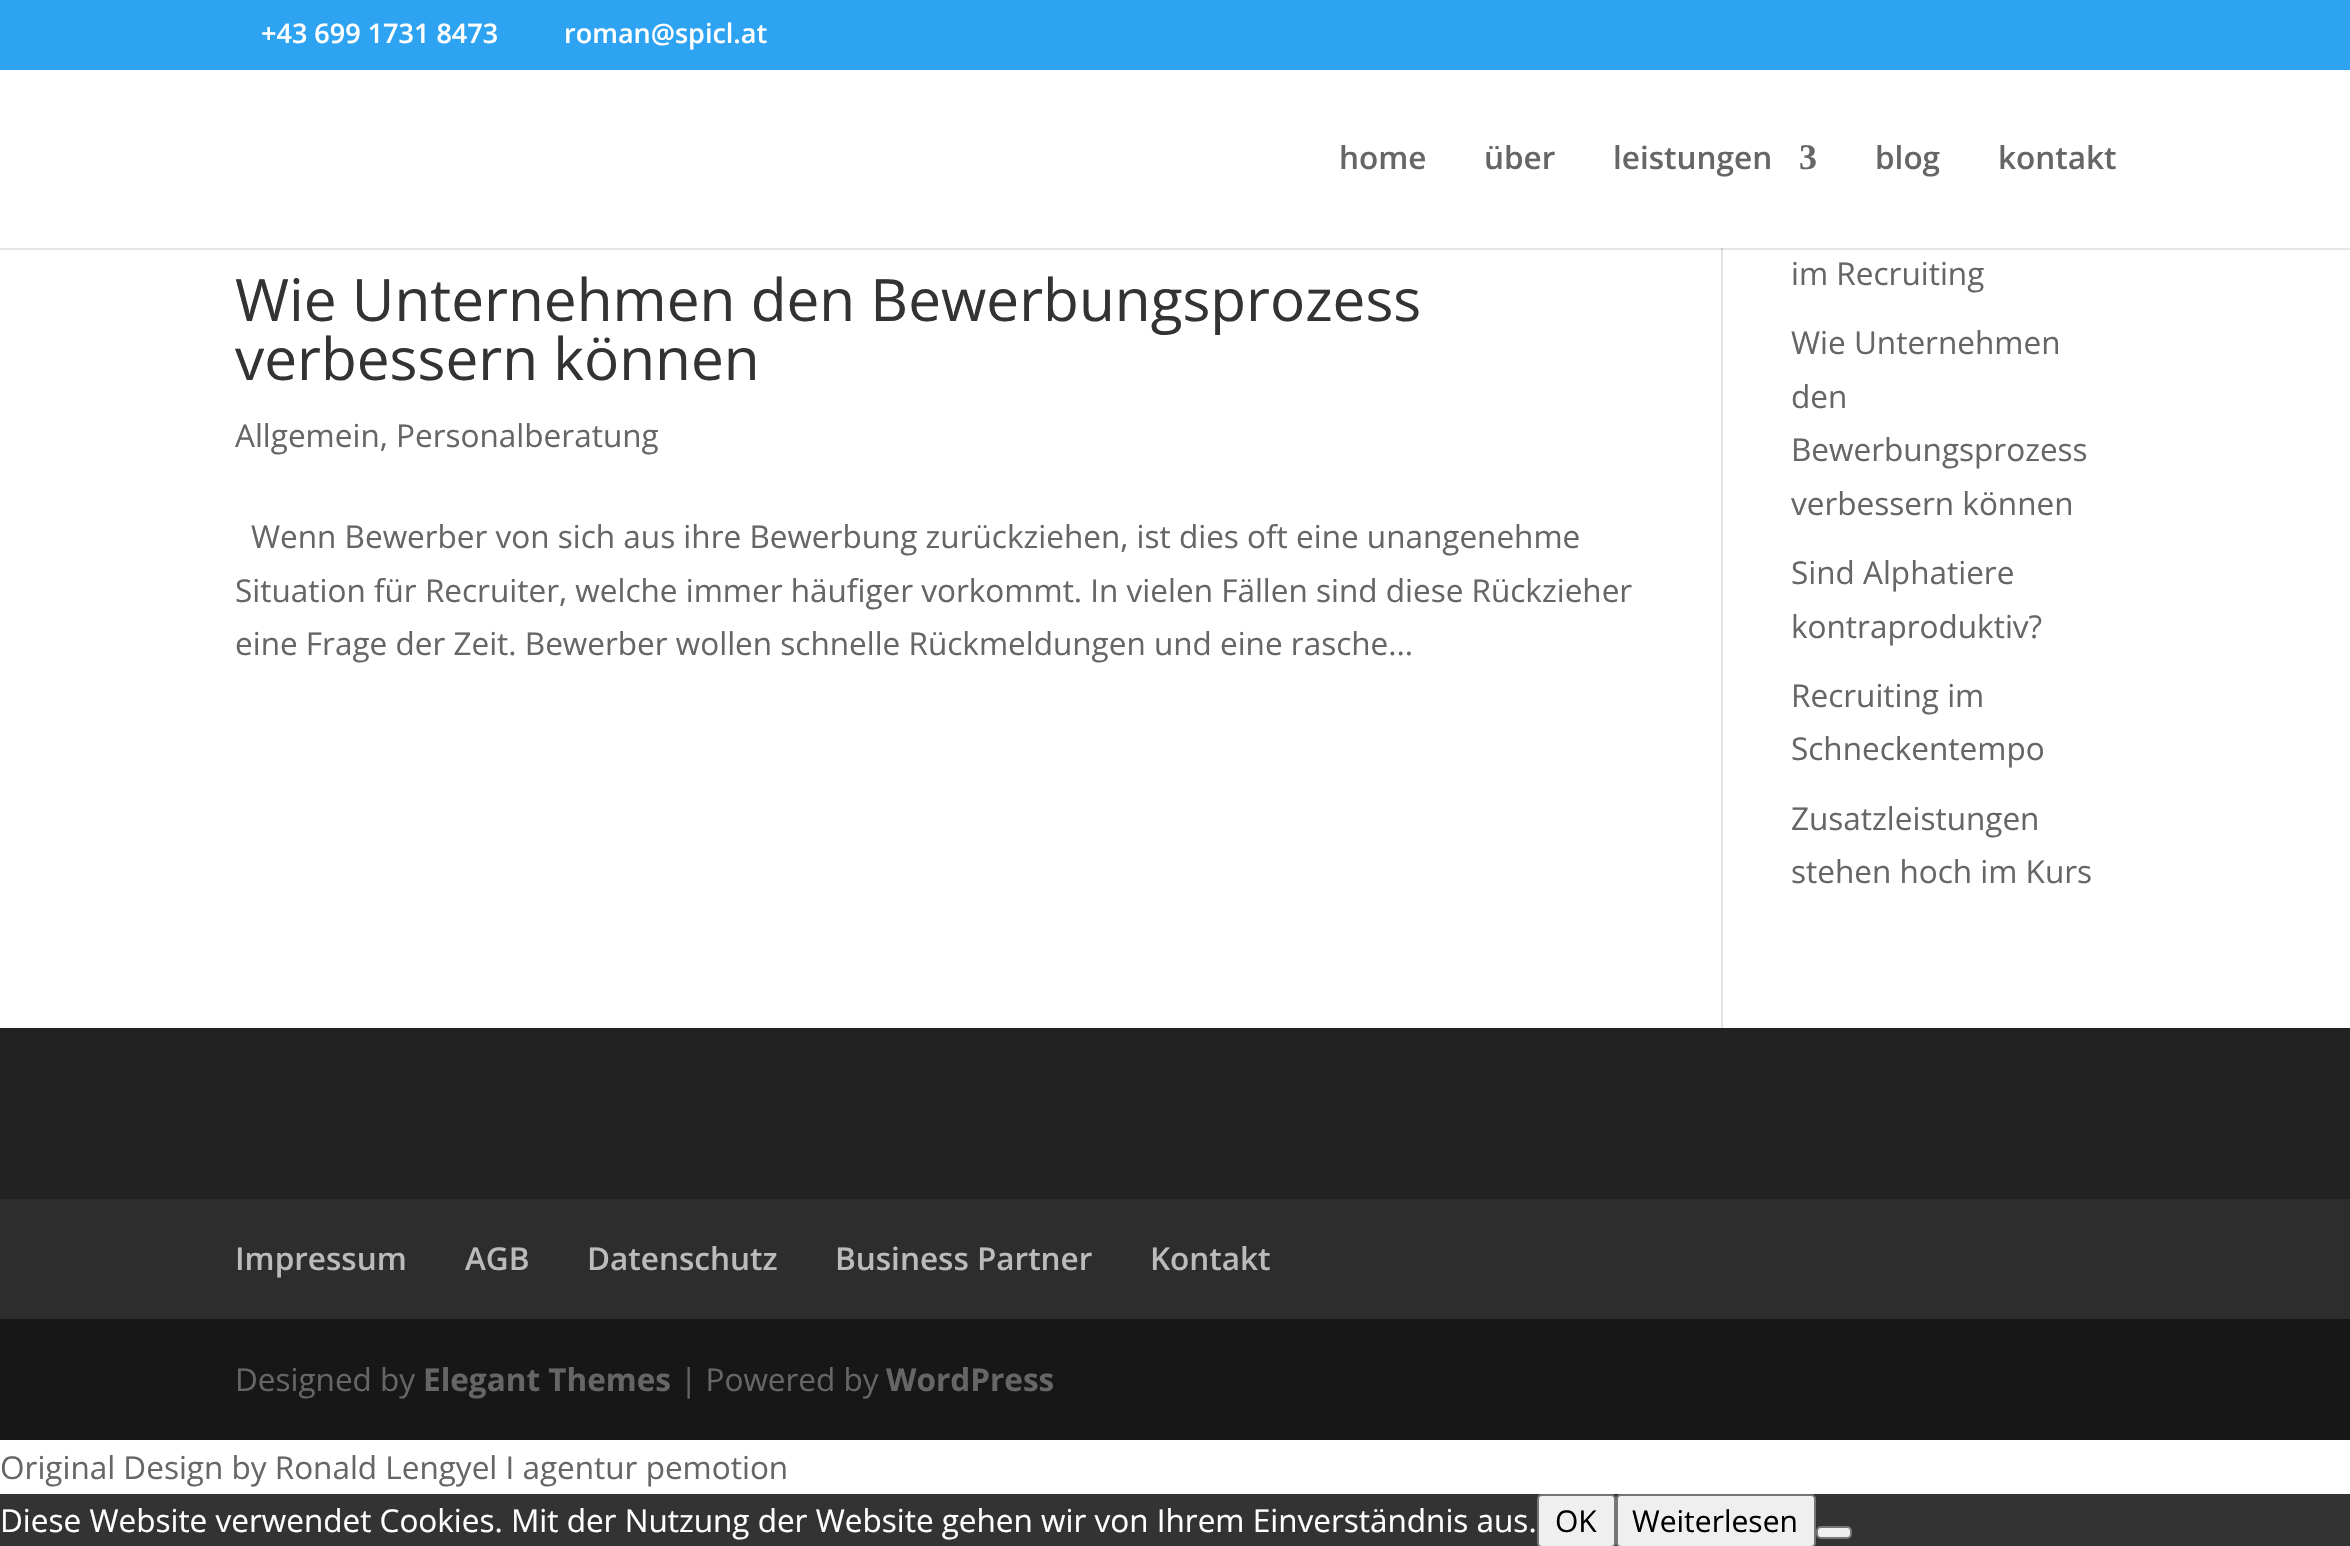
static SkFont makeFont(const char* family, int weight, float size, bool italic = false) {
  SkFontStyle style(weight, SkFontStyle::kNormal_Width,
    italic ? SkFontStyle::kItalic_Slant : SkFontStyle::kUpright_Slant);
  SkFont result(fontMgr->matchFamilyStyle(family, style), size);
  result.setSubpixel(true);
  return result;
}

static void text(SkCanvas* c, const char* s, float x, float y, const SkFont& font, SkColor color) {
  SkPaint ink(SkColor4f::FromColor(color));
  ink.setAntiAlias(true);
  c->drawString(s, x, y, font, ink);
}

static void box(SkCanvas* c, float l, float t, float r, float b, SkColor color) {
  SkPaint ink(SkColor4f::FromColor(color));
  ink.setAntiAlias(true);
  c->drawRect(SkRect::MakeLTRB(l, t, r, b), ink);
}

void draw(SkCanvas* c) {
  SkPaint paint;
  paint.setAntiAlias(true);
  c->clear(0xffffffff);
  box(c, 0, 248, 2350, 250, 0xffe6e6e6);
  box(c, 0, 0, 2350, 70, 0xff2ea3f2);
  SkFont face1 = makeFont("Open Sans", 600, 27);
  text(c, "+43 699 1731 8473", 261, 43, face1, 0xffffffff);
  text(c, "roman@spicl.at", 564, 43, face1, 0xffffffff);
  SkFont face2 = makeFont("Open Sans", 600, 31.5f);
  text(c, "home", 1339, 169, face2, 0xff666666);
  text(c, "über", 1484, 169, face2, 0xff666666);
  text(c, "leistungen", 1613, 169, face2, 0xff666666);
  SkFont face3 = makeFont("Liberation Serif", 700, 36);
  text(c, "3", 1799, 169, face3, 0xff666666);
  text(c, "blog", 1875, 169, face2, 0xff666666);
  text(c, "kontakt", 1998, 169, face2, 0xff666666);
  box(c, 1721, 250, 1723, 1028, 0xffe2e2e2);
  box(c, 1721, 248, 1723, 250, 0xffcbcbcb);
  SkFont face4 = makeFont("Open Sans", 400, 58.5f);
  text(c, "Wie Unternehmen den Bewerbungsprozess", 235, 321, face4, 0xff333333);
  text(c, "verbessern können", 235, 380, face4, 0xff333333);
  SkFont face5 = makeFont("Open Sans", 400, 31.5f);
  text(c, "Allgemein, Personalberatung", 235, 447, face5, 0xff666666);
  text(c, "Wenn Bewerber von sich aus ihre Bewerbung zurückziehen, ist dies oft eine unangenehme", 251, 548, face5, 0xff666666);
  text(c, "Situation für Recruiter, welche immer häufiger vorkommt. In vielen Fällen sind diese Rückzieher", 235, 602, face5, 0xff666666);
  text(c, "eine Frage der Zeit. Bewerber wollen schnelle Rückmeldungen und eine rasche...", 235, 655, face5, 0xff666666);
  text(c, "im Recruiting", 1791, 285, face5, 0xff666666);
  text(c, "Wie Unternehmen", 1791, 354, face5, 0xff666666);
  text(c, "den", 1791, 408, face5, 0xff666666);
  text(c, "Bewerbungsprozess", 1791, 461, face5, 0xff666666);
  text(c, "verbessern können", 1791, 515, face5, 0xff666666);
  text(c, "Sind Alphatiere", 1791, 584, face5, 0xff666666);
  text(c, "kontraproduktiv?", 1791, 638, face5, 0xff666666);
  text(c, "Recruiting im", 1791, 707, face5, 0xff666666);
  text(c, "Schneckentempo", 1791, 760, face5, 0xff666666);
  text(c, "Zusatzleistungen", 1791, 830, face5, 0xff666666);
  text(c, "stehen hoch im Kurs", 1791, 883, face5, 0xff666666);
  box(c, 0, 1028, 2350, 1199, 0xff222222);
  box(c, 0, 1199, 2350, 1319, 0xff2d2d2d);
  text(c, "Impressum", 235, 1270, face2, 0xffbbbbbb);
  text(c, "AGB", 465, 1270, face2, 0xffbbbbbb);
  text(c, "Datenschutz", 587, 1270, face2, 0xffbbbbbb);
  text(c, "Business Partner", 835, 1270, face2, 0xffbbbbbb);
  text(c, "Kontakt", 1150, 1270, face2, 0xffbbbbbb);
  box(c, 0, 1319, 2350, 1440, 0xff171717);
  text(c, "Designed by", 235, 1391, face5, 0xff666666);
  SkFont face6 = makeFont("Open Sans", 700, 31.5f);
  text(c, "Elegant Themes", 423, 1391, face6, 0xff666666);
  text(c, "| Powered by", 680, 1391, face5, 0xff666666);
  text(c, "WordPress", 886, 1391, face6, 0xff666666);
  text(c, "Original Design by Ronald Lengyel I agentur pemotion", 0, 1479, face5, 0xff666666);
  box(c, 0, 1494, 2350, 1546, 0xff333333);
  text(c, "Diese Website verwendet Cookies. Mit der Nutzung der Website gehen wir von Ihrem Einverständnis aus.", 0, 1532, face5, 0xffffffff);
  paint.setColor(0xffefefef);
  c->drawRoundRect(SkRect::MakeLTRB(1538, 1495, 1615, 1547), 4, 4, paint);
  paint.setStyle(SkPaint::kStroke_Style);
  paint.setStrokeWidth(2);
  paint.setColor(0xff767676);
  c->drawRoundRect(SkRect::MakeLTRB(1538, 1495, 1615, 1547), 4, 4, paint);
  SkFont face7 = makeFont("Open Sans", 400, 30);
  text(c, "OK", 1555, 1532, face7, 0xff000000);
  paint.setStyle(SkPaint::kFill_Style);
  paint.setColor(0xffefefef);
  c->drawRoundRect(SkRect::MakeLTRB(1617, 1495, 1815, 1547), 4, 4, paint);
  paint.setStyle(SkPaint::kStroke_Style);
  paint.setColor(0xff767676);
  c->drawRoundRect(SkRect::MakeLTRB(1617, 1495, 1815, 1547), 4, 4, paint);
  text(c, "Weiterlesen", 1632, 1532, face7, 0xff000000);
  paint.setStyle(SkPaint::kFill_Style);
  paint.setColor(0xffefefef);
  c->drawRoundRect(SkRect::MakeLTRB(1817, 1527, 1851, 1538), 4, 4, paint);
  paint.setStyle(SkPaint::kStroke_Style);
  paint.setColor(0xff767676);
  c->drawRoundRect(SkRect::MakeLTRB(1817, 1527, 1851, 1538), 4, 4, paint);
}
